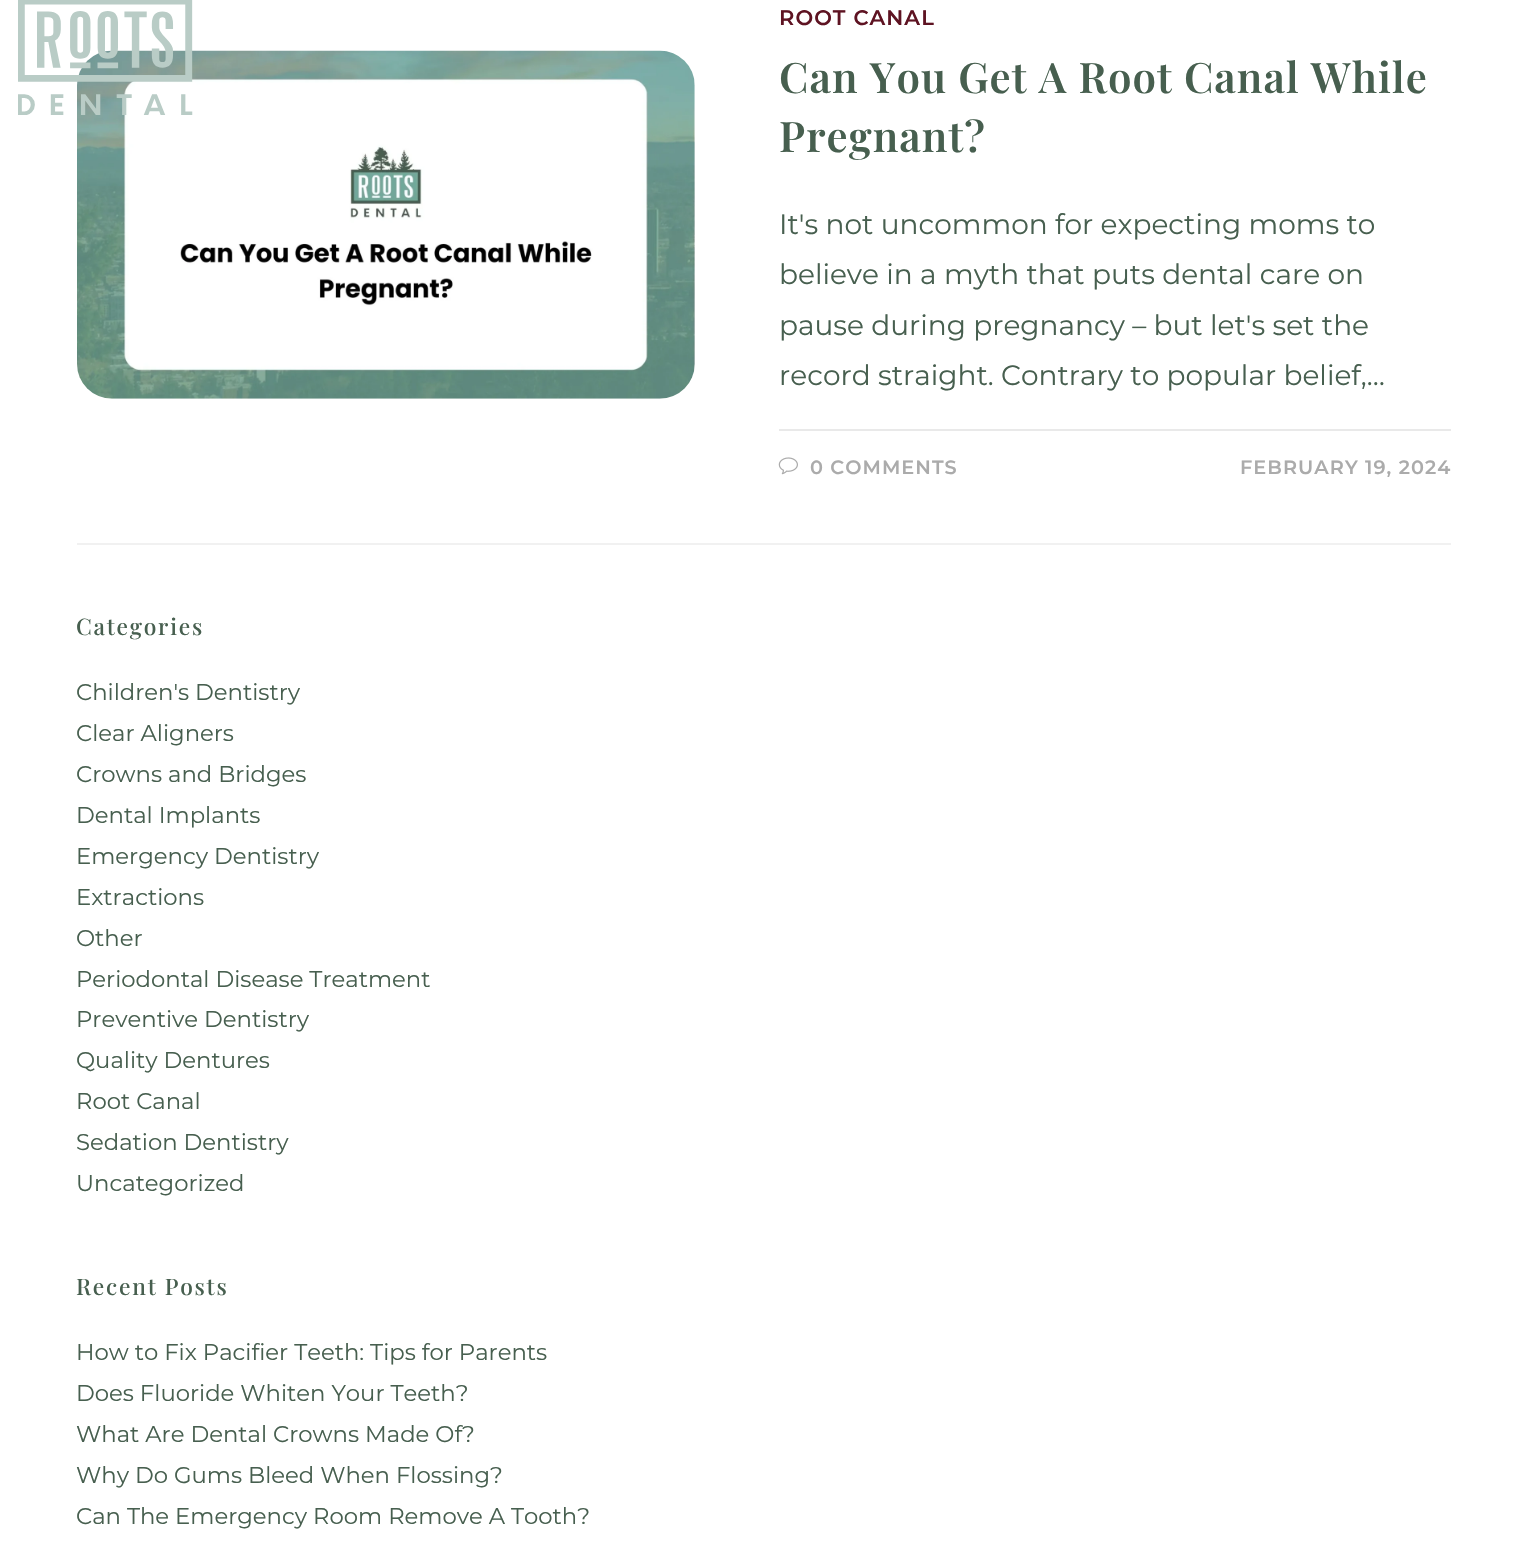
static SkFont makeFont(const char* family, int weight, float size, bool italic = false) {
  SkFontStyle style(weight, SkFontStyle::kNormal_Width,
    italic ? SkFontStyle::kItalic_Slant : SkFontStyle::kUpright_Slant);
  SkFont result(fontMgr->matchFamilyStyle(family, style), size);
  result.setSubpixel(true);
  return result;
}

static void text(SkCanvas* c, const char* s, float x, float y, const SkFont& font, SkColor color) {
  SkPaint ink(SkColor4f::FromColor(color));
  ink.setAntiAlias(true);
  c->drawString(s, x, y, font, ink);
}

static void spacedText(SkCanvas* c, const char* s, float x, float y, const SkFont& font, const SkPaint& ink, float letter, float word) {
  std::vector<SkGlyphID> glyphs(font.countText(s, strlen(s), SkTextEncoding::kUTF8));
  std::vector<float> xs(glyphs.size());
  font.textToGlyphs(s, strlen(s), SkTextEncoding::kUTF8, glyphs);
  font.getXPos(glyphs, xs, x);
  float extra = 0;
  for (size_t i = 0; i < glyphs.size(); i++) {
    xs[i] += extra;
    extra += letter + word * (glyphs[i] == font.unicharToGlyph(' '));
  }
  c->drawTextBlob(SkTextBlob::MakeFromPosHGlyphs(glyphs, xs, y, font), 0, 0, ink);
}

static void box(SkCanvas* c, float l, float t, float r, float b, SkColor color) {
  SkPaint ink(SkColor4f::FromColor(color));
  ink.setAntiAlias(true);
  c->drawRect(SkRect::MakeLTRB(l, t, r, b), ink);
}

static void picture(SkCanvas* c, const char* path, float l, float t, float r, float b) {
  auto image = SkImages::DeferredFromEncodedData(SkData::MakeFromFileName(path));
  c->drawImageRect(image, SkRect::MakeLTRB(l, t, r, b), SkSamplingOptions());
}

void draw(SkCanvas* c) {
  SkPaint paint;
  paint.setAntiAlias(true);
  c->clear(0xffffffff);
  picture(c, "img_02.png", 77, 50, 695, 399);
  picture(c, "img_01.png", 18, 0, 193, 115);
  box(c, 77, 543, 1451, 545, 0xfff1f1f1);
  SkFont face1 = makeFont("Montserrat", 600, 21);
  paint.setColor(0xff5e1322);
  spacedText(c, "ROOT CANAL", 779, 25, face1, paint, 1.05f, 0);
  SkFont face2 = makeFont("Playfair Display", 600, 42);
  paint.setColor(0xff475f4f);
  spacedText(c, "Can You Get A Root Canal While", 779, 93, face2, paint, 1.05f, 0);
  spacedText(c, "Pregnant?", 779, 152, face2, paint, 1.05f, 0);
  SkFont face3 = makeFont("Montserrat", 400, 28);
  text(c, "It's not uncommon for expecting moms to", 779, 234, face3, 0xff475f4f);
  text(c, "believe in a myth that puts dental care on", 779, 284, face3, 0xff475f4f);
  text(c, "pause during pregnancy – but let's set the", 779, 335, face3, 0xff475f4f);
  text(c, "record straight. Contrary to popular belief,…", 779, 385, face3, 0xff475f4f);
  box(c, 779, 429, 1451, 431, 0xffe9e9e9);
  picture(c, "img_03.png", 778, 457, 798, 475);
  SkFont face4 = makeFont("Montserrat", 600, 19.25f);
  paint.setColor(0xffababab);
  spacedText(c, "0 COMMENTS", 810, 474, face4, paint, 1.05f, 0);
  spacedText(c, "FEBRUARY 19, 2024", 1240, 474, face4, paint, 1.05f, 0);
  SkFont face5 = makeFont("Playfair Display", 500, 22.75f);
  paint.setColor(0xff475f4f);
  spacedText(c, "Categories", 76, 635, face5, paint, 1.75f, 0);
  SkFont face6 = makeFont("Montserrat", 400, 22.75f);
  text(c, "Children's Dentistry", 76, 700, face6, 0xff475f4f);
  text(c, "Clear Aligners", 76, 741, face6, 0xff475f4f);
  text(c, "Crowns and Bridges", 76, 782, face6, 0xff475f4f);
  text(c, "Dental Implants", 76, 823, face6, 0xff475f4f);
  text(c, "Emergency Dentistry", 76, 864, face6, 0xff475f4f);
  text(c, "Extractions", 76, 905, face6, 0xff475f4f);
  text(c, "Other", 76, 946, face6, 0xff475f4f);
  text(c, "Periodontal Disease Treatment", 76, 987, face6, 0xff475f4f);
  text(c, "Preventive Dentistry", 76, 1027, face6, 0xff475f4f);
  text(c, "Quality Dentures", 76, 1068, face6, 0xff475f4f);
  text(c, "Root Canal", 76, 1109, face6, 0xff475f4f);
  text(c, "Sedation Dentistry", 76, 1150, face6, 0xff475f4f);
  text(c, "Uncategorized", 76, 1191, face6, 0xff475f4f);
  spacedText(c, "Recent Posts", 76, 1295, face5, paint, 1.75f, 0);
  text(c, "How to Fix Pacifier Teeth: Tips for Parents", 76, 1360, face6, 0xff475f4f);
  text(c, "Does Fluoride Whiten Your Teeth?", 76, 1401, face6, 0xff475f4f);
  text(c, "What Are Dental Crowns Made Of?", 76, 1442, face6, 0xff475f4f);
  text(c, "Why Do Gums Bleed When Flossing?", 76, 1483, face6, 0xff475f4f);
  text(c, "Can The Emergency Room Remove A Tooth?", 76, 1524, face6, 0xff475f4f);
}
